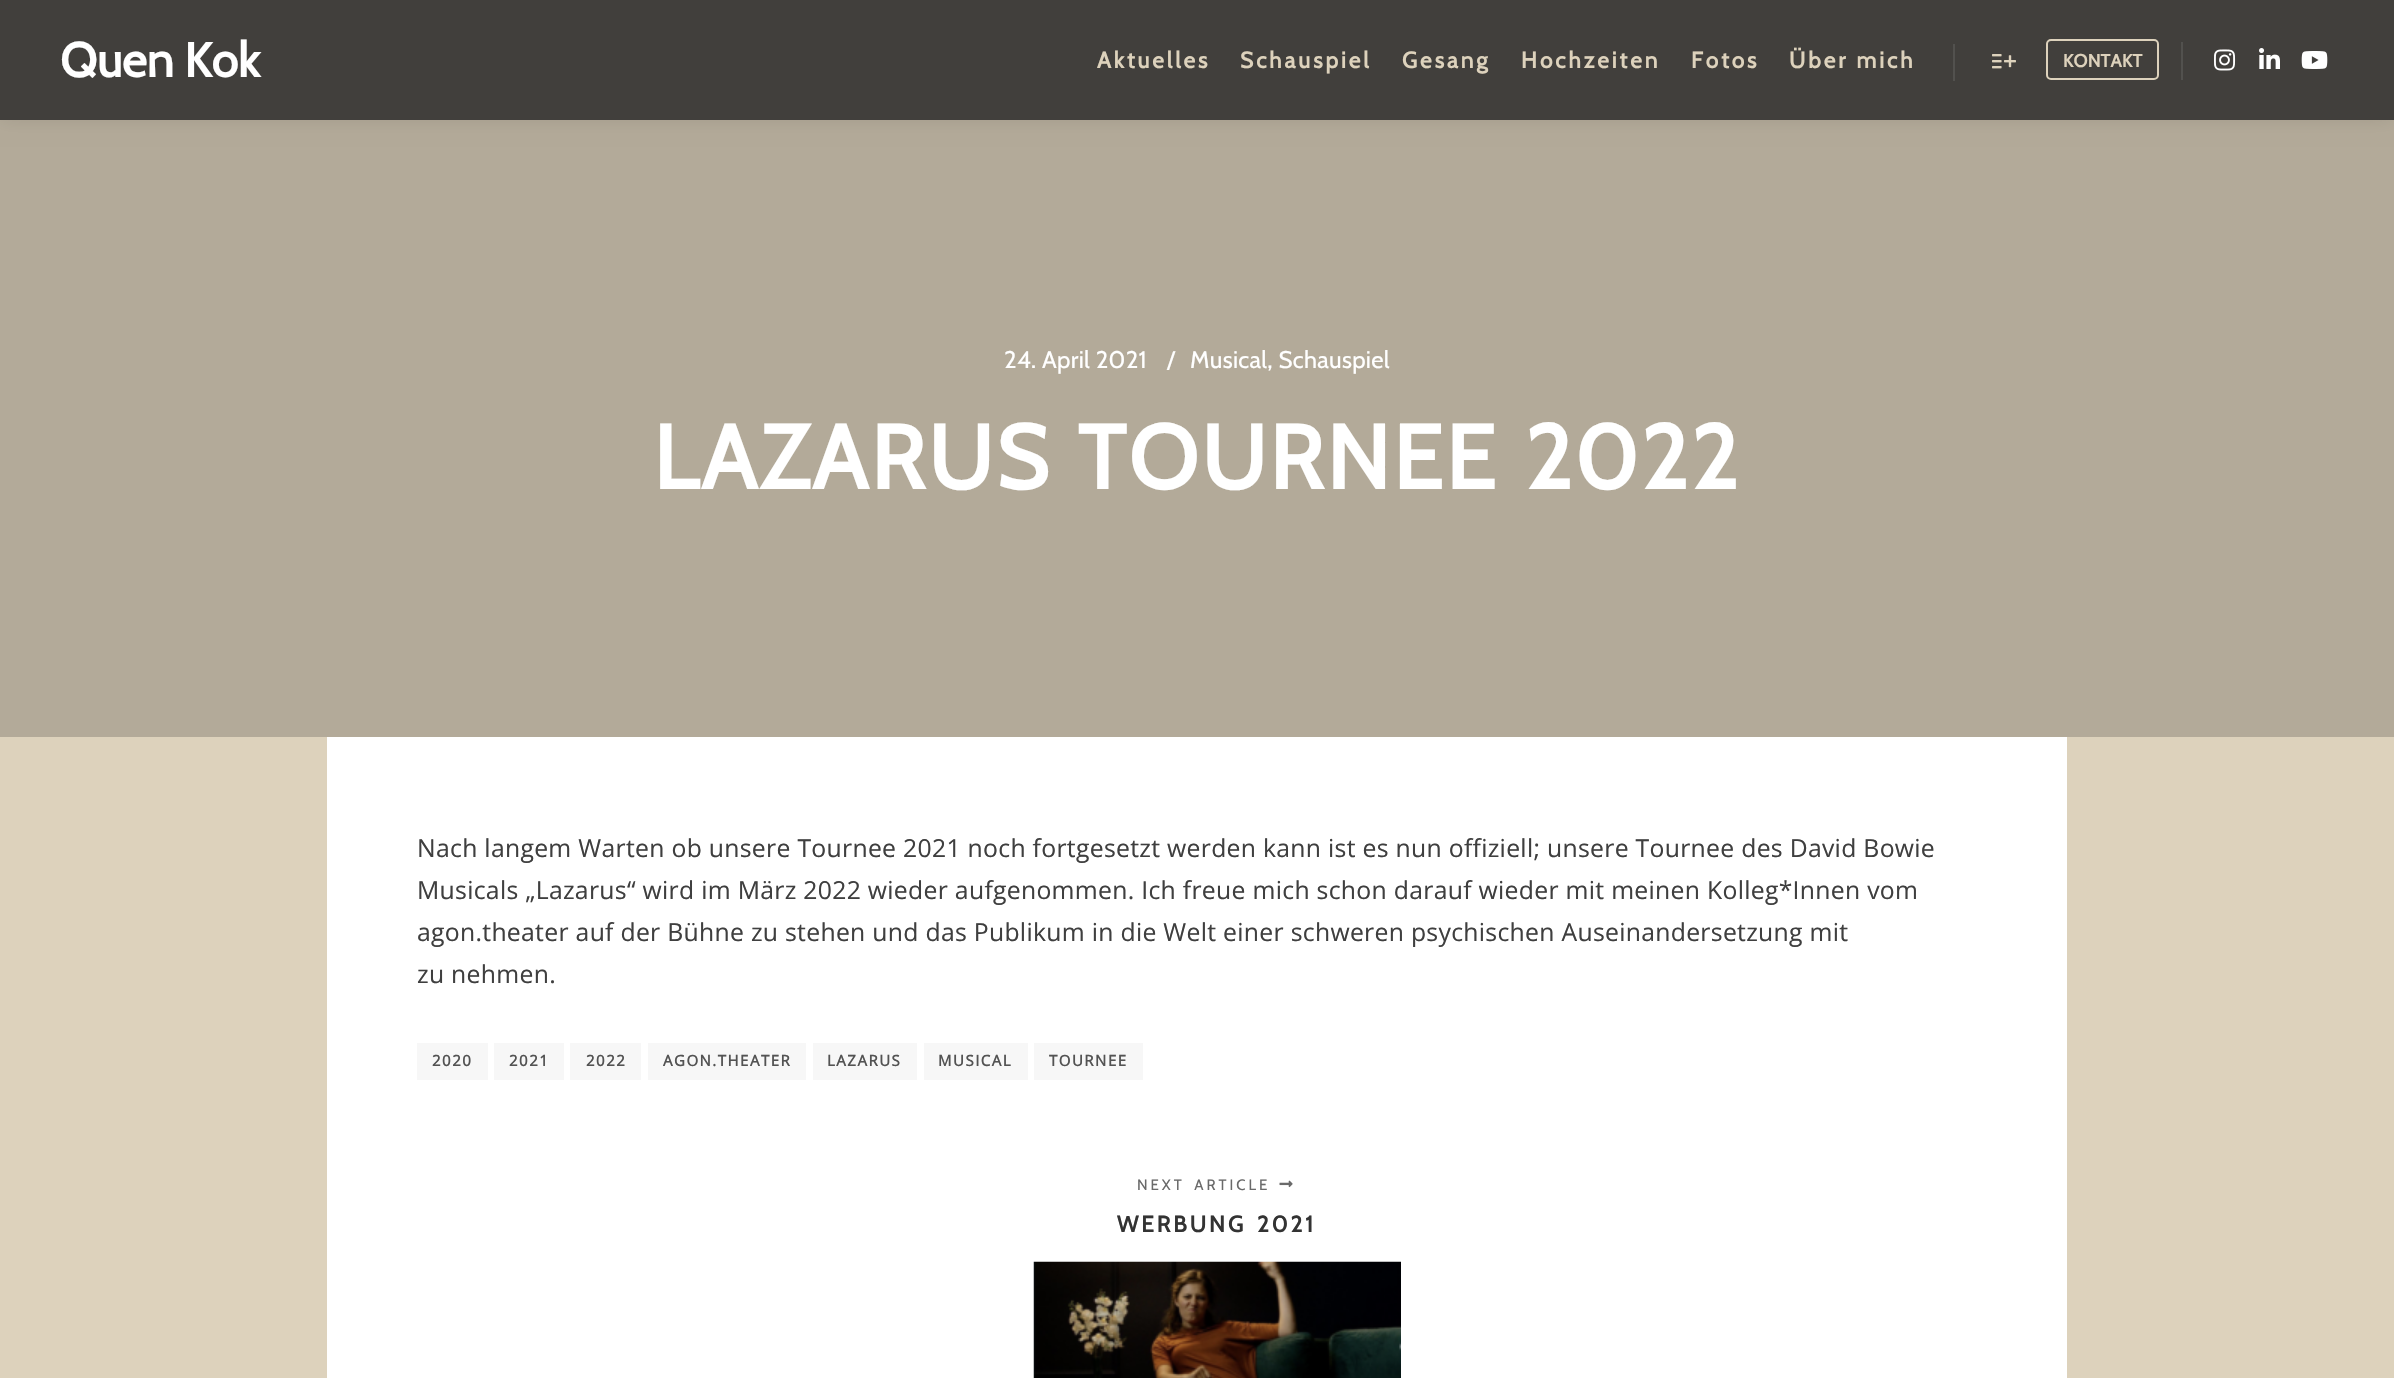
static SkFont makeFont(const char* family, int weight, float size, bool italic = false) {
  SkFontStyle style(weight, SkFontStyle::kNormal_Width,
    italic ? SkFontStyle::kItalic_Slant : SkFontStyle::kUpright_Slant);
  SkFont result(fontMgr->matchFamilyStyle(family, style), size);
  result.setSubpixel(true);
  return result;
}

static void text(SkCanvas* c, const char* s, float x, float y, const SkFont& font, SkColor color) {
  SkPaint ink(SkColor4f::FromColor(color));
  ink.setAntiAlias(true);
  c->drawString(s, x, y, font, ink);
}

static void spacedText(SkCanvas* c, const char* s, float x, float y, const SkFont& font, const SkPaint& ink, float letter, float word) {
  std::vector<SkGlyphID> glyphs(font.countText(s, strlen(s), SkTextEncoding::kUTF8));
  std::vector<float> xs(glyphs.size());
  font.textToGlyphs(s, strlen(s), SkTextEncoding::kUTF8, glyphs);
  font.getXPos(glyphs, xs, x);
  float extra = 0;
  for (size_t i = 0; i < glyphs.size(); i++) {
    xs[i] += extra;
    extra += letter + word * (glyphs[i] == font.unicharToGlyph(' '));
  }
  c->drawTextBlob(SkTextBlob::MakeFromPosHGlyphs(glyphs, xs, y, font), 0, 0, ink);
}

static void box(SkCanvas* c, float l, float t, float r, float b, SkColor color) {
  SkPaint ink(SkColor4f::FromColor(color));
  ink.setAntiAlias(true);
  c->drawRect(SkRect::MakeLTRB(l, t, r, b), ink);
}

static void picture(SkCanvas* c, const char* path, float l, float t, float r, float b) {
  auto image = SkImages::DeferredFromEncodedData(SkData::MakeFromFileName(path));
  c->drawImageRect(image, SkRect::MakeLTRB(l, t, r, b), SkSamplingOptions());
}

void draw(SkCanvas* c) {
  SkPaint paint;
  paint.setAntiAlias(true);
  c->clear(0xffddd2bc);
  box(c, 0, 120, 2394, 737, 0xffb3aa99);
  paint.setColor(0x17000000);
  paint.setMaskFilter(SkMaskFilter::MakeBlur(kNormal_SkBlurStyle, 9));
  c->drawRect(SkRect::MakeLTRB(0, 0, 2394, 120), paint);
  paint.setMaskFilter(nullptr);
  box(c, 0, 0, 2394, 120, 0xff413f3c);
  SkFont face1 = makeFont("Cabin", 700, 48);
  text(c, "Quen Kok", 60, 77, face1, 0xffffffff);
  SkFont face2 = makeFont("Cabin", 700, 22.5f);
  paint.setColor(0xffddd2bc);
  spacedText(c, "Aktuelles", 1097, 68, face2, paint, 3, 0);
  spacedText(c, "Schauspiel", 1240, 68, face2, paint, 3, 0);
  spacedText(c, "Gesang", 1402, 68, face2, paint, 3, 0);
  spacedText(c, "Hochzeiten", 1521, 68, face2, paint, 3, 0);
  spacedText(c, "Fotos", 1691, 68, face2, paint, 3, 0);
  spacedText(c, "Über mich", 1789, 68, face2, paint, 3, 0);
  box(c, 1953, 44, 1955, 81, 0xff52514e);
  picture(c, "img_01.png", 1992, 54, 2016, 69);
  paint.setStyle(SkPaint::kStroke_Style);
  paint.setStrokeWidth(2);
  c->drawRoundRect(SkRect::MakeLTRB(2047, 40, 2158, 79), 4, 4, paint);
  SkFont face3 = makeFont("Cabin", 700, 18);
  paint.setStyle(SkPaint::kFill_Style);
  spacedText(c, "KONTAKT", 2063, 67, face3, paint, 0.3f, 0);
  box(c, 2181, 42, 2183, 80, 0xff52514e);
  picture(c, "img_02.png", 2214, 49, 2236, 71);
  picture(c, "img_03.png", 2259, 48, 2280, 69);
  picture(c, "img_04.png", 2301, 51, 2328, 69);
  SkFont face4 = makeFont("Cabin", 400, 24);
  paint.setColor(0xffffffff);
  spacedText(c, "24. April 2021", 1004, 368, face4, paint, 0.3f, 0);
  spacedText(c, "/", 1167, 368, face4, paint, 0.3f, 0);
  spacedText(c, "Musical, Schauspiel", 1190, 368, face4, paint, 0.3f, 0);
  SkFont face5 = makeFont("Cabin", 700, 90);
  spacedText(c, "LAZARUS TOURNEE 2022", 653, 489, face5, paint, 3, 3);
  box(c, 327, 737, 2067, 1378, 0xffffffff);
  SkFont face6 = makeFont("Open Sans", 400, 24.75f);
  paint.setColor(0xff3f3f3f);
  spacedText(c, "Nach langem Warten ob unsere Tournee 2021 noch fortgesetzt werden kann ist es nun offiziell; unsere Tournee des David Bowie", 417, 857, face6, paint, 0.3f, 0);
  spacedText(c, "Musicals „Lazarus“ wird im März 2022 wieder aufgenommen. Ich freue mich schon darauf wieder mit meinen Kolleg*Innen vom", 417, 899, face6, paint, 0.3f, 0);
  spacedText(c, "agon.theater auf der Bühne zu stehen und das Publikum in die Welt einer schweren psychischen Auseinandersetzung mit", 417, 941, face6, paint, 0.3f, 0);
  spacedText(c, "zu nehmen.", 417, 983, face6, paint, 0.3f, 0);
  box(c, 417, 1043, 488, 1080, 0xfff7f7f7);
  SkFont face7 = makeFont("Open Sans", 700, 15);
  paint.setColor(0xff535353);
  spacedText(c, "2020", 432, 1066, face7, paint, 1.5f, 0);
  box(c, 494, 1043, 564, 1080, 0xfff7f7f7);
  spacedText(c, "2021", 509, 1066, face7, paint, 1.5f, 0);
  box(c, 570, 1043, 641, 1080, 0xfff7f7f7);
  spacedText(c, "2022", 586, 1066, face7, paint, 1.5f, 0);
  box(c, 648, 1043, 806, 1080, 0xfff7f7f7);
  spacedText(c, "AGON.THEATER", 663, 1066, face7, paint, 1.5f, 0);
  box(c, 813, 1043, 917, 1080, 0xfff7f7f7);
  spacedText(c, "LAZARUS", 827, 1066, face7, paint, 1.5f, 0);
  box(c, 924, 1043, 1028, 1080, 0xfff7f7f7);
  spacedText(c, "MUSICAL", 938, 1066, face7, paint, 1.5f, 0);
  box(c, 1034, 1043, 1143, 1080, 0xfff7f7f7);
  spacedText(c, "TOURNEE", 1049, 1066, face7, paint, 1.5f, 0);
  SkFont face8 = makeFont("Cabin", 400, 15);
  paint.setColor(0xff6a6a6a);
  spacedText(c, "NEXT ARTICLE", 1137, 1190, face8, paint, 3, 3);
  picture(c, "img_05.png", 1279, 1180, 1293, 1188);
  paint.setColor(0xff333333);
  spacedText(c, "WERBUNG 2021", 1117, 1232, face2, paint, 3, 3);
  picture(c, "img_06.png", 1033, 1261, 1401, 1378);
}
